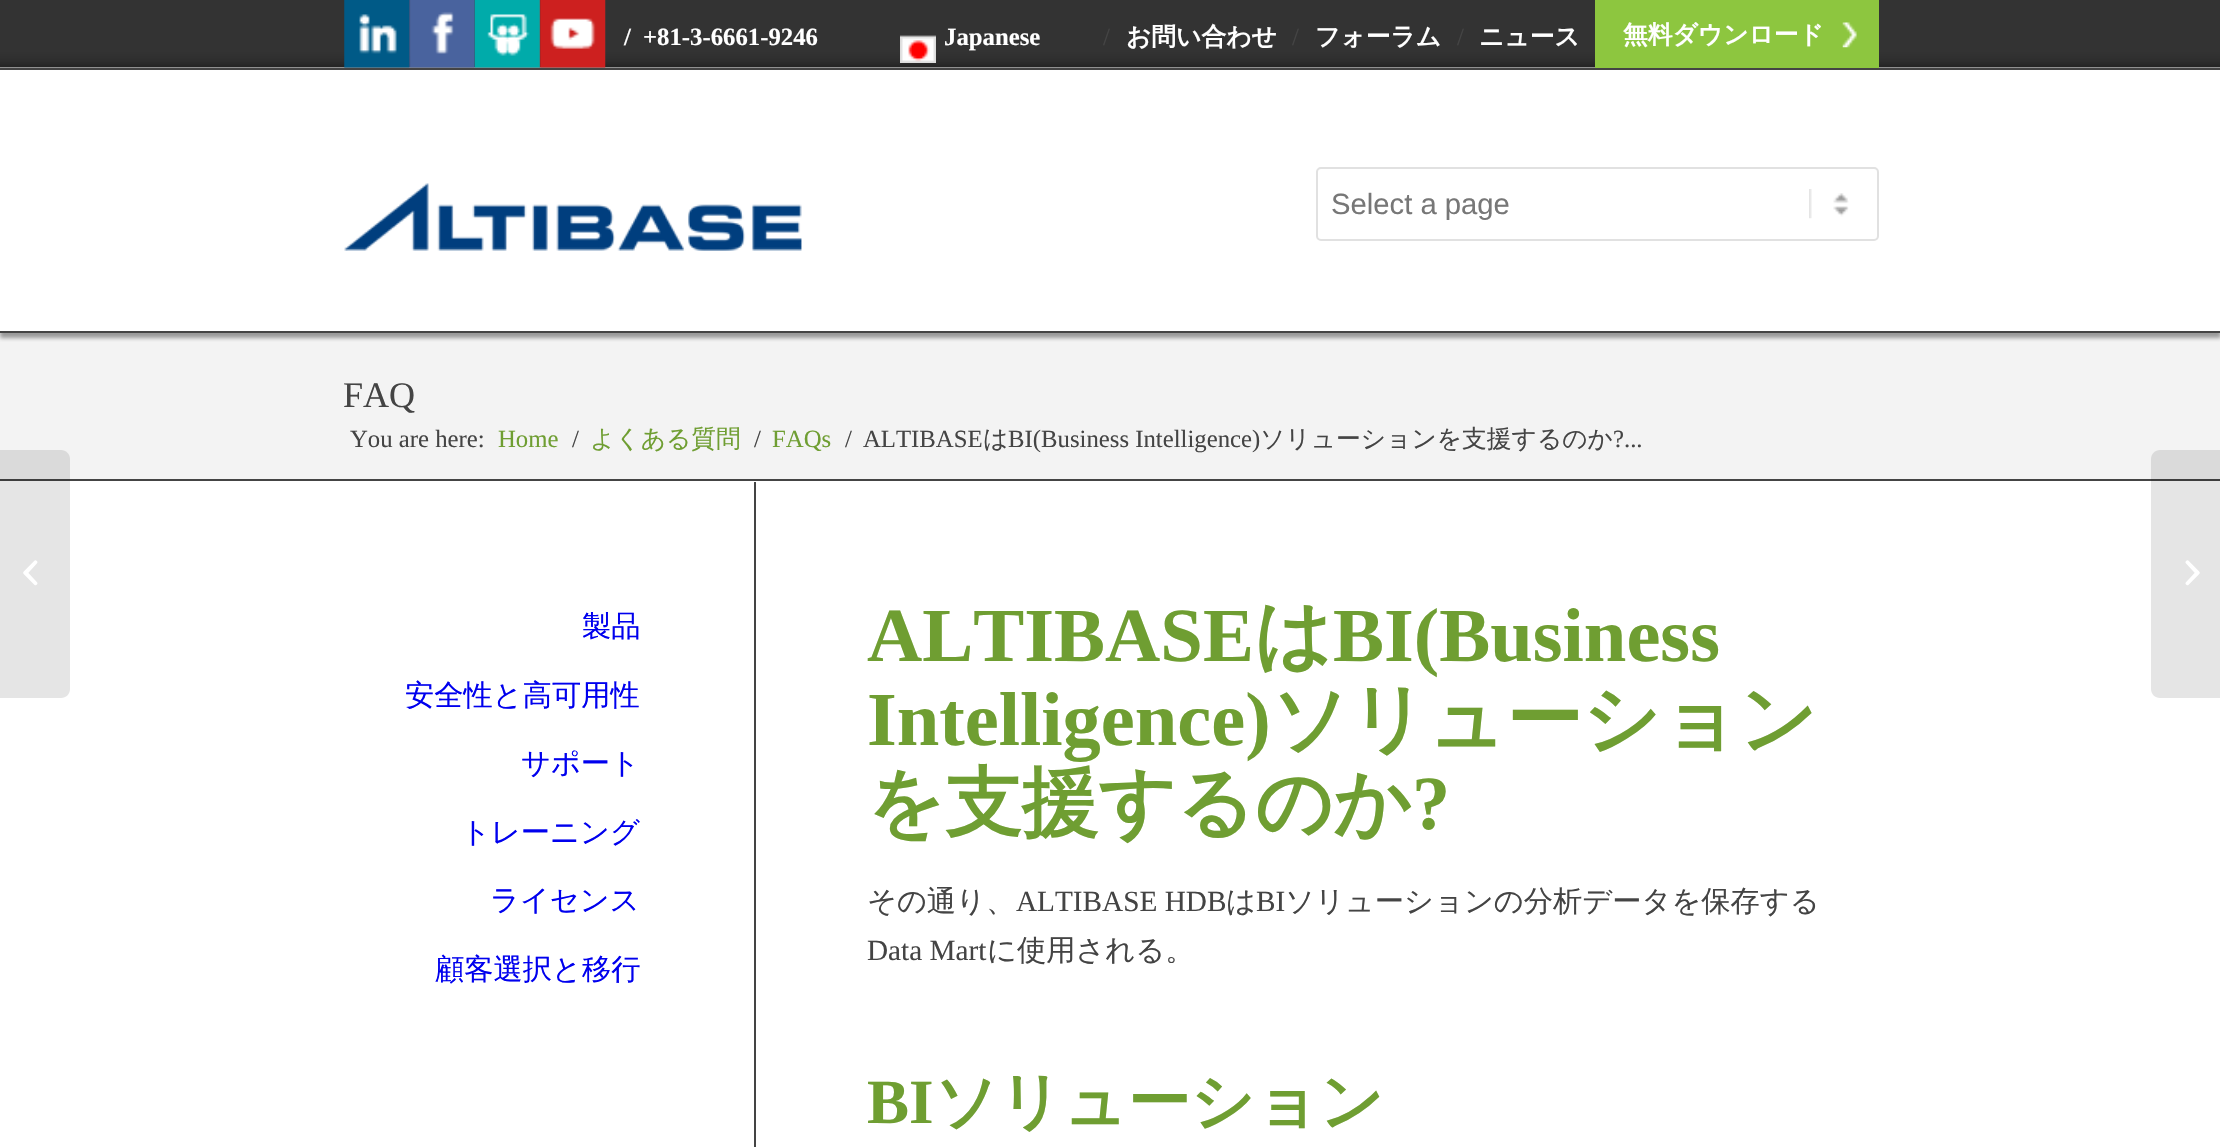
static SkFont makeFont(const char* family, int weight, float size, bool italic = false) {
  SkFontStyle style(weight, SkFontStyle::kNormal_Width,
    italic ? SkFontStyle::kItalic_Slant : SkFontStyle::kUpright_Slant);
  SkFont result(fontMgr->matchFamilyStyle(family, style), size);
  result.setSubpixel(true);
  return result;
}

static void text(SkCanvas* c, const char* s, float x, float y, const SkFont& font, SkColor color) {
  SkPaint ink(SkColor4f::FromColor(color));
  ink.setAntiAlias(true);
  c->drawString(s, x, y, font, ink);
}

static void box(SkCanvas* c, float l, float t, float r, float b, SkColor color) {
  SkPaint ink(SkColor4f::FromColor(color));
  ink.setAntiAlias(true);
  c->drawRect(SkRect::MakeLTRB(l, t, r, b), ink);
}

static void picture(SkCanvas* c, const char* path, float l, float t, float r, float b) {
  auto image = SkImages::DeferredFromEncodedData(SkData::MakeFromFileName(path));
  c->drawImageRect(image, SkRect::MakeLTRB(l, t, r, b), SkSamplingOptions());
}

void draw(SkCanvas* c) {
  SkPaint paint;
  paint.setAntiAlias(true);
  c->clear(0xffffffff);
  box(c, 0, 333, 2220, 479, 0xfff3f3f3);
  c->save();
  c->clipRect(SkRect::MakeLTRB(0, 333, 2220, 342));
  paint.setColor(0xff999999);
  paint.setMaskFilter(SkMaskFilter::MakeBlur(kNormal_SkBlurStyle, 2));
  c->drawRect(SkRect::MakeLTRB(0, 72, 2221, 338), paint);
  paint.setMaskFilter(nullptr);
  c->restore();
  picture(c, "img_01.png", 0, 0, 2220, 68);
  picture(c, "img_02.png", 344, 0, 410, 68);
  picture(c, "img_03.png", 409, 0, 476, 68);
  picture(c, "img_04.png", 474, 0, 540, 68);
  picture(c, "img_05.png", 539, 0, 606, 68);
  SkFont face1 = makeFont("Liberation Serif", 700, 24.75f);
  text(c, "/", 624, 45, face1, 0xffffffff);
  text(c, "+81-3-6661-9246", 643, 45, face1, 0xffffffff);
  picture(c, "img_06.png", 900, 35, 936, 63);
  text(c, "Japanese", 944, 45, face1, 0xffffffff);
  SkFont face2 = makeFont("Liberation Serif", 400, 24.75f);
  text(c, "/", 1103, 45, face2, 0xff444444);
  SkFont face3 = makeFont("WenQuanYi Zen Hei", 700, 24.75f);
  text(c, "お問い合わせ", 1126, 45, face3, 0xffffffff);
  text(c, "/", 1292, 45, face2, 0xff444444);
  text(c, "フォーラム", 1315, 45, face3, 0xffffffff);
  text(c, "/", 1457, 45, face2, 0xff444444);
  text(c, "ニュース", 1479, 45, face3, 0xffffffff);
  box(c, 1595, 0, 1879, 68, 0xff8dc63f);
  picture(c, "img_07.png", 1842, 22, 1857, 48);
  text(c, "無料ダウンロード", 1623, 43, face3, 0xffffffff);
  box(c, 0, 68, 2220, 70, 0xff444444);
  box(c, 0, 331, 2220, 333, 0xff444444);
  picture(c, "img_08.png", 344, 183, 802, 251);
  picture(c, "img_09.png", 1809, 189, 1849, 219);
  paint.setStyle(SkPaint::kStroke_Style);
  paint.setStrokeWidth(2);
  paint.setColor(0xffe1e1e1);
  c->drawRoundRect(SkRect::MakeLTRB(1317, 168, 1878, 240), 4, 4, paint);
  SkFont face4 = makeFont("Liberation Sans", 400, 29.25f);
  text(c, "Select a page", 1331, 214, face4, 0xff777777);
  box(c, 0, 479, 2220, 481, 0xff444444);
  paint.setStyle(SkPaint::kFill_Style);
  paint.setColor(0x1a000000);
  c->drawPath(SkPathBuilder().moveTo(0, 450).lineTo(61, 450).cubicTo(66, 450, 70, 454, 70, 459).lineTo(70, 689).cubicTo(70, 694, 66, 698, 61, 698).lineTo(0, 698).close().detach(), paint);
  picture(c, "img_10.png", 23, 560, 38, 586);
  SkFont face5 = makeFont("Liberation Serif", 400, 36);
  text(c, "FAQ", 343, 407, face5, 0xff444444);
  text(c, "You are here:", 350, 447, face2, 0xff444444);
  text(c, "Home", 498, 447, face2, 0xff6f9e32);
  text(c, "/", 572, 447, face2, 0xff444444);
  SkFont face6 = makeFont("WenQuanYi Zen Hei", 500, 24.75f);
  text(c, "よくある質問", 590, 447, face6, 0xff6f9e32);
  text(c, "/", 754, 447, face2, 0xff444444);
  text(c, "FAQs", 772, 447, face2, 0xff6f9e32);
  text(c, "/", 845, 447, face2, 0xff444444);
  text(c, "ALTIBASE", 863, 447, face2, 0xff444444);
  text(c, "は", 983, 447, face6, 0xff444444);
  text(c, "BI(Business Intelligence)", 1008, 447, face2, 0xff444444);
  text(c, "ソリューションを支援するのか", 1260, 447, face6, 0xff444444);
  text(c, "?...", 1613, 447, face2, 0xff444444);
  SkFont face7 = makeFont("WenQuanYi Zen Hei", 500, 29.25f);
  text(c, "製品", 582, 636, face7, 0xff0000ee);
  text(c, "安全性と高可用性", 405, 705, face7, 0xff0000ee);
  text(c, "サポート", 521, 773, face7, 0xff0000ee);
  text(c, "トレーニング", 461, 842, face7, 0xff0000ee);
  text(c, "ライセンス", 490, 910, face7, 0xff0000ee);
  text(c, "顧客選択と移行", 435, 979, face7, 0xff0000ee);
  box(c, 754, 482, 756, 1147, 0xff444444);
  SkFont face8 = makeFont("Liberation Serif", 700, 76.5f);
  text(c, "ALTIBASE", 867, 661, face8, 0xff6f9e32);
  SkFont face9 = makeFont("WenQuanYi Zen Hei", 700, 76.5f);
  text(c, "は", 1254, 661, face9, 0xff6f9e32);
  text(c, "BI(Business", 1333, 661, face8, 0xff6f9e32);
  text(c, "Intelligence)", 867, 745, face8, 0xff6f9e32);
  text(c, "ソリューション", 1271, 745, face9, 0xff6f9e32);
  text(c, "を支援するのか", 867, 829, face9, 0xff6f9e32);
  text(c, "?", 1412, 829, face8, 0xff6f9e32);
  text(c, "その通り、", 867, 911, face7, 0xff444444);
  SkFont face10 = makeFont("Liberation Serif", 400, 29.25f);
  text(c, "ALTIBASE HDB", 1016, 911, face10, 0xff444444);
  text(c, "は", 1226, 911, face7, 0xff444444);
  text(c, "BI", 1256, 911, face10, 0xff444444);
  text(c, "ソリューションの分析データを保存する", 1285, 911, face7, 0xff444444);
  text(c, "Data Mart", 867, 960, face10, 0xff444444);
  text(c, "に使用される。", 987, 960, face7, 0xff444444);
  SkFont face11 = makeFont("Liberation Serif", 700, 63);
  text(c, "BI", 867, 1123, face11, 0xff6f9e32);
  SkFont face12 = makeFont("WenQuanYi Zen Hei", 700, 63);
  text(c, "ソリューション", 934, 1123, face12, 0xff6f9e32);
  c->drawPath(SkPathBuilder().moveTo(2160, 450).lineTo(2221, 450).lineTo(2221, 698).lineTo(2160, 698).cubicTo(2155, 698, 2151, 694, 2151, 689).lineTo(2151, 459).cubicTo(2151, 454, 2155, 450, 2160, 450).close().detach(), paint);
  picture(c, "img_11.png", 2185, 560, 2200, 586);
}
